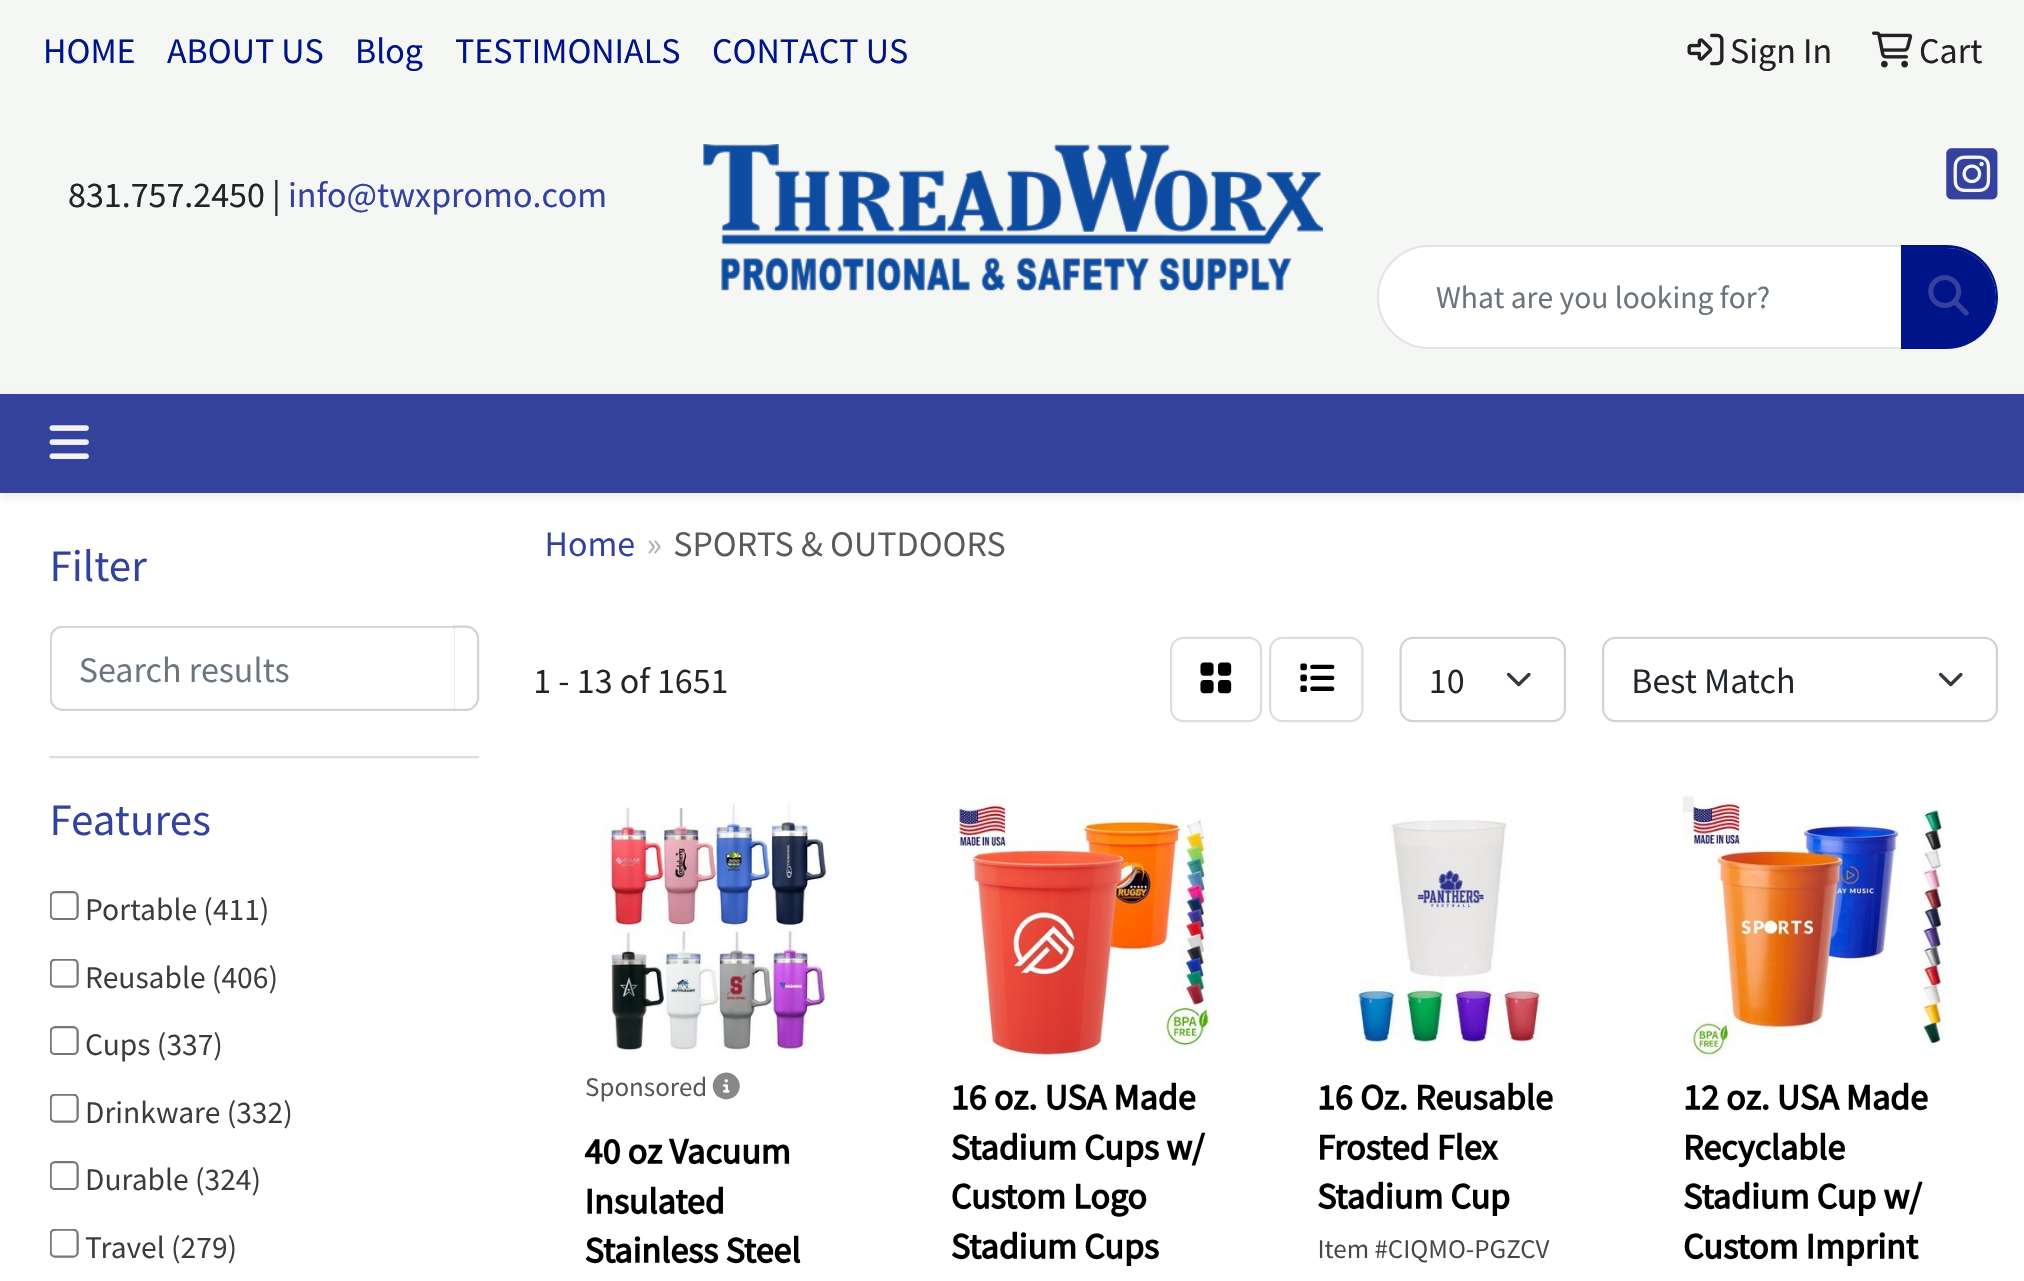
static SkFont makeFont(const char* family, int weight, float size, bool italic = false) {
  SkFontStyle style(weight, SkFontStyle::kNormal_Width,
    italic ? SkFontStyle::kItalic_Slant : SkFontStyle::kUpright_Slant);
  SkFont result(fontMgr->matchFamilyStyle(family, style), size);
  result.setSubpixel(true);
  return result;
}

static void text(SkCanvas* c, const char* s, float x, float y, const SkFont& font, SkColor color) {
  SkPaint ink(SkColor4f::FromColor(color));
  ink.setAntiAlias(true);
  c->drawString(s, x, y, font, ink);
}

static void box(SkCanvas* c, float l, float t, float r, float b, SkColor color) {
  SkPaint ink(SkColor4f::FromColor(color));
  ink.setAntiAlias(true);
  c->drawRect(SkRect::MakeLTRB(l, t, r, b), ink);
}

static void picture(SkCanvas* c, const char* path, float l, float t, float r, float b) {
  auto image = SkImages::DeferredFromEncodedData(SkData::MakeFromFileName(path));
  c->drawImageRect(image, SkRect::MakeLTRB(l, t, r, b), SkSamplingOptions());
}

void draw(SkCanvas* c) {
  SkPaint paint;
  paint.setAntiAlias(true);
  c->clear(0xffffffff);
  box(c, 0, 0, 2024, 394, 0xfff5f7f4);
  SkFont face1 = makeFont("Source Sans Pro", 400, 36);
  text(c, "HOME", 43, 63, face1, 0xff001489);
  text(c, "ABOUT US", 167, 63, face1, 0xff001489);
  text(c, "Blog", 355, 63, face1, 0xff001489);
  text(c, "TESTIMONIALS", 455, 63, face1, 0xff001489);
  text(c, "CONTACT US", 712, 63, face1, 0xff001489);
  picture(c, "img_01.png", 1687, 33, 1724, 66);
  text(c, "Sign In", 1730, 63, face1, 0xff222222);
  picture(c, "img_02.png", 1872, 31, 1913, 68);
  text(c, "Cart", 1919, 63, face1, 0xff222222);
  text(c, "831.757.2450 |", 68, 207, face1, 0xff212529);
  text(c, "info@twxpromo.com", 288, 207, face1, 0xff34429d);
  picture(c, "img_03.png", 703, 144, 1323, 291);
  picture(c, "img_04.png", 1946, 148, 1998, 200);
  paint.setColor(0xffffffff);
  c->drawPath(SkPathBuilder().moveTo(1429, 246).lineTo(1903, 246).lineTo(1903, 348).lineTo(1429, 348).cubicTo(1401, 348, 1378, 325, 1378, 297).cubicTo(1378, 269, 1401, 246, 1429, 246).close().detach(), paint);
  paint.setStyle(SkPaint::kStroke_Style);
  paint.setStrokeWidth(2);
  paint.setColor(0xffe4e4e4);
  c->drawPath(SkPathBuilder().moveTo(1429, 246).lineTo(1903, 246).lineTo(1903, 348).lineTo(1429, 348).cubicTo(1401, 348, 1378, 325, 1378, 297).cubicTo(1378, 269, 1401, 246, 1429, 246).close().detach(), paint);
  SkFont face2 = makeFont("Source Sans Pro", 400, 31.5f);
  text(c, "What are you looking for?", 1436, 308, face2, 0xff6c757d);
  paint.setStyle(SkPaint::kFill_Style);
  paint.setColor(0xff001489);
  c->drawPath(SkPathBuilder().moveTo(1901, 248).lineTo(1946.5f, 248).cubicTo(1974, 248, 1996, 270, 1996, 297.5f).cubicTo(1996, 325, 1974, 347, 1946.5f, 347).lineTo(1901, 347).close().detach(), paint);
  c->drawPath(SkPathBuilder(SkPathFillType::kEvenOdd).moveTo(1901, 245).lineTo(1946, 245).cubicTo(1975, 245, 1998, 268, 1998, 297).cubicTo(1998, 326, 1975, 349, 1946, 349).lineTo(1901, 349).close().moveTo(1901, 248).lineTo(1946, 248).cubicTo(1974, 248, 1996, 270, 1996, 297).cubicTo(1996, 324, 1974, 346, 1946, 346).lineTo(1901, 346).close().detach(), paint);
  picture(c, "img_05.png", 1928, 275, 1969, 316);
  paint.setColor(0x12000000);
  paint.setMaskFilter(SkMaskFilter::MakeBlur(kNormal_SkBlurStyle, 4.5f));
  c->drawRect(SkRect::MakeLTRB(0, 398, 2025, 497), paint);
  paint.setMaskFilter(nullptr);
  box(c, 0, 394, 2024, 493, 0xff34429d);
  picture(c, "img_06.png", 49, 425, 89, 459);
  picture(c, "img_07.png", 49, 532, 1998, 1266);
}
